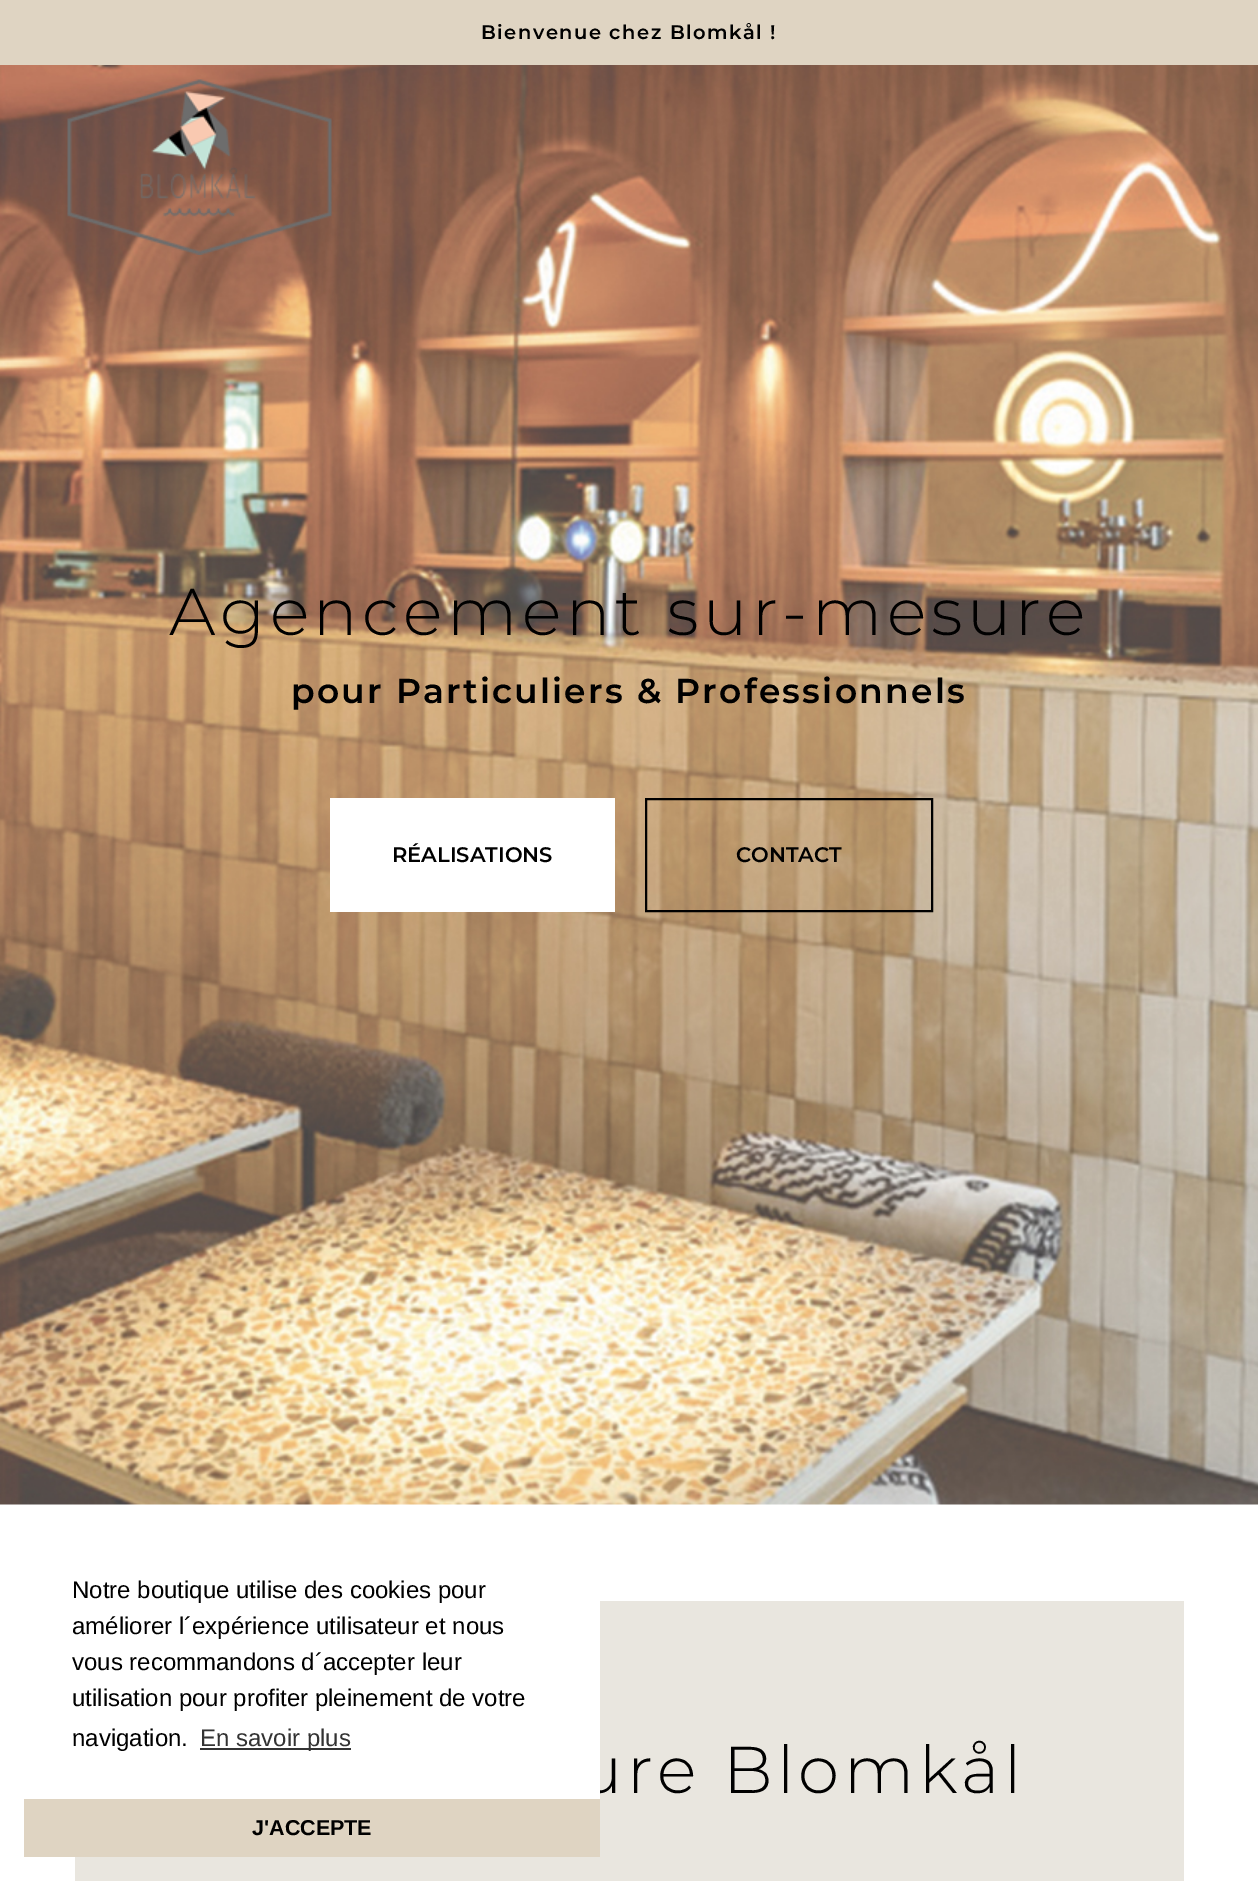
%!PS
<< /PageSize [1258 1881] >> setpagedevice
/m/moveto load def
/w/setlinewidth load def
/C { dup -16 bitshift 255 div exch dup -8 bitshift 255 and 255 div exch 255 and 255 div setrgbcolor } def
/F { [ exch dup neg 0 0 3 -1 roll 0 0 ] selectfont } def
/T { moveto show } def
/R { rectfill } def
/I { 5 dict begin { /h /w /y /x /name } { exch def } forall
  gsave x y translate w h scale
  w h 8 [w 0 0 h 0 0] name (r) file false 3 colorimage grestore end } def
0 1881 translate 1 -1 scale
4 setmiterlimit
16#FFFFFF C
0 0 1258 1881 R
16#DFD4C2 C
0 0 1258 65 R
/Montserrat-SemiBold 19.5 F
16#000000 C
481 39 m 1.5 0 (Bienvenue chez Blomkål !) ashow
(2.rgb) 0 65 1258 1440 I
(1.rgb) 67 79 265 176 I
/Montserrat-Light 66 F
169 635 m 4.5 0 (Agencement sur-mesure) ashow
/Montserrat-SemiBold 34.5 F
291 703 m 2.25 0 (pour Particuliers & Professionnels) ashow
16#FFFFFF C
330 798 285 114 R
/Montserrat-SemiBold 21 F
16#000000 C
(RÉALISATIONS) 392 862 T
2 w
646 799 286 112 rectstroke
(CONTACT) 736 862 T
16#E9E6DF C
75 1601 1109 280 R
/Montserrat-Light 66 F
16#000000 C
578 1793 m 4.5 0 (ure Blomkål) ashow
16#FFFFFF C
75 1601 525 198 R
/LiberationSans-Regular 24 F
16#000000 C
(Notre boutique utilise des cookies pour) 72 1598 T
(améliorer l´expérience utilisateur et nous) 72 1634 T
(vous recommandons d´accepter leur) 72 1670 T
(utilisation pour profiter pleinement de votre) 72 1706 T
(navigation.) 72 1746 T
16#333333 C
200 1748 151 2 R
(En savoir plus) 200 1746 T
16#DFD4C2 C
24 1799 576 58 R
/LiberationSans-Bold 21.5 F
16#000000 C
(J'ACCEPTE) 252 1835 T
showpage
